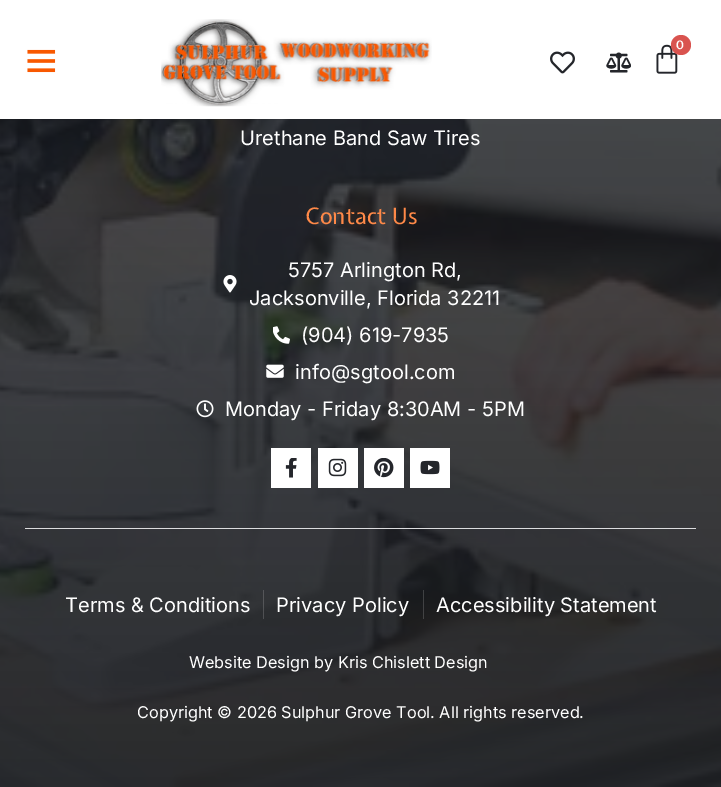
%!PS
<< /PageSize [721 787] /PageUsesTransparency true >> setpagedevice
/m/moveto load def
/f/fill load def
/C { dup -16 bitshift 255 div exch dup -8 bitshift 255 and 255 div exch 255 and 255 div setrgbcolor } def
/F { [ exch dup neg 0 0 3 -1 roll 0 0 ] selectfont } def
/T { moveto show } def
/R { rectfill } def
/A { dup .setfillconstantalpha .setstrokeconstantalpha } def
/O { newpath 0 360 arc closepath } def
/I { 5 dict begin { /h /w /y /x /name } { exch def } forall
  gsave x y translate w h scale
  w h 8 [w 0 0 h 0 0] name (r) file false 3 colorimage grestore end } def
0 .pushpdf14devicefilter
0 787 translate 1 -1 scale
4 setmiterlimit
16#FFFFFF C
0 0 721 787 R
(1.rgb) 161 19 271 88 I
(2.rgb) 656 44 22 30 I
16#D9534F C
681 45 10 O f
/ExpletusSans-SemiBold 12 F
16#FFFFFF C
676 49 m 1 0 (0) ashow
(3.rgb) 550 51 25 23 I
(4.rgb) 606 52 25 21 I
(5.rgb) 27 49 29 24 I
(6.rgb) 0 119 721 668 I
16#DCDCDE C
25 528 671 1 R
/Inter-Regular 20 F
16#FFFFFF C
(Urethane Band Saw Tires) 240 145 T
/ExpletusSans-Regular 22.5 F
16#FF8948 C
(Contact Us) 305 224 T
(7.rgb) 223 275 14 18 I
/Inter-Regular 20 F
16#FFFFFF C
(5757 Arlington Rd,) 288 277 T
(Jacksonville, Florida 32211) 249 305 T
(8.rgb) 273 326 17 18 I
(\(904\) 619-7935) 301 342 T
(9.rgb) 266 364 18 14 I
(info@sgtool.com) 295 379 T
(10.rgb) 196 400 18 18 I
(Monday - Friday 8:30AM - 5PM) 225 416 T
271 448 40 40 R
(11.rgb) 285 458 12 20 I
318 448 40 40 R
(12.rgb) 328 458 19 19 I
364 448 40 40 R
(13.rgb) 374 458 20 20 I
410 448 40 40 R
(14.rgb) 420 460 20 15 I
(Terms & Conditions) 65 612 T
0.17 A
263 590 1 29 R
1 A
(Privacy Policy) 276 612 T
0.17 A
423 590 1 29 R
1 A
(Accessibility Statement) 436 612 T
/Inter-Regular 16.25 F
(Website Design by Kris Chislett Design) 189 668 T
(Copyright © 2026 Sulphur Grove Tool. All rights reserved.) 137 718 T
.poppdf14devicefilter showpage
